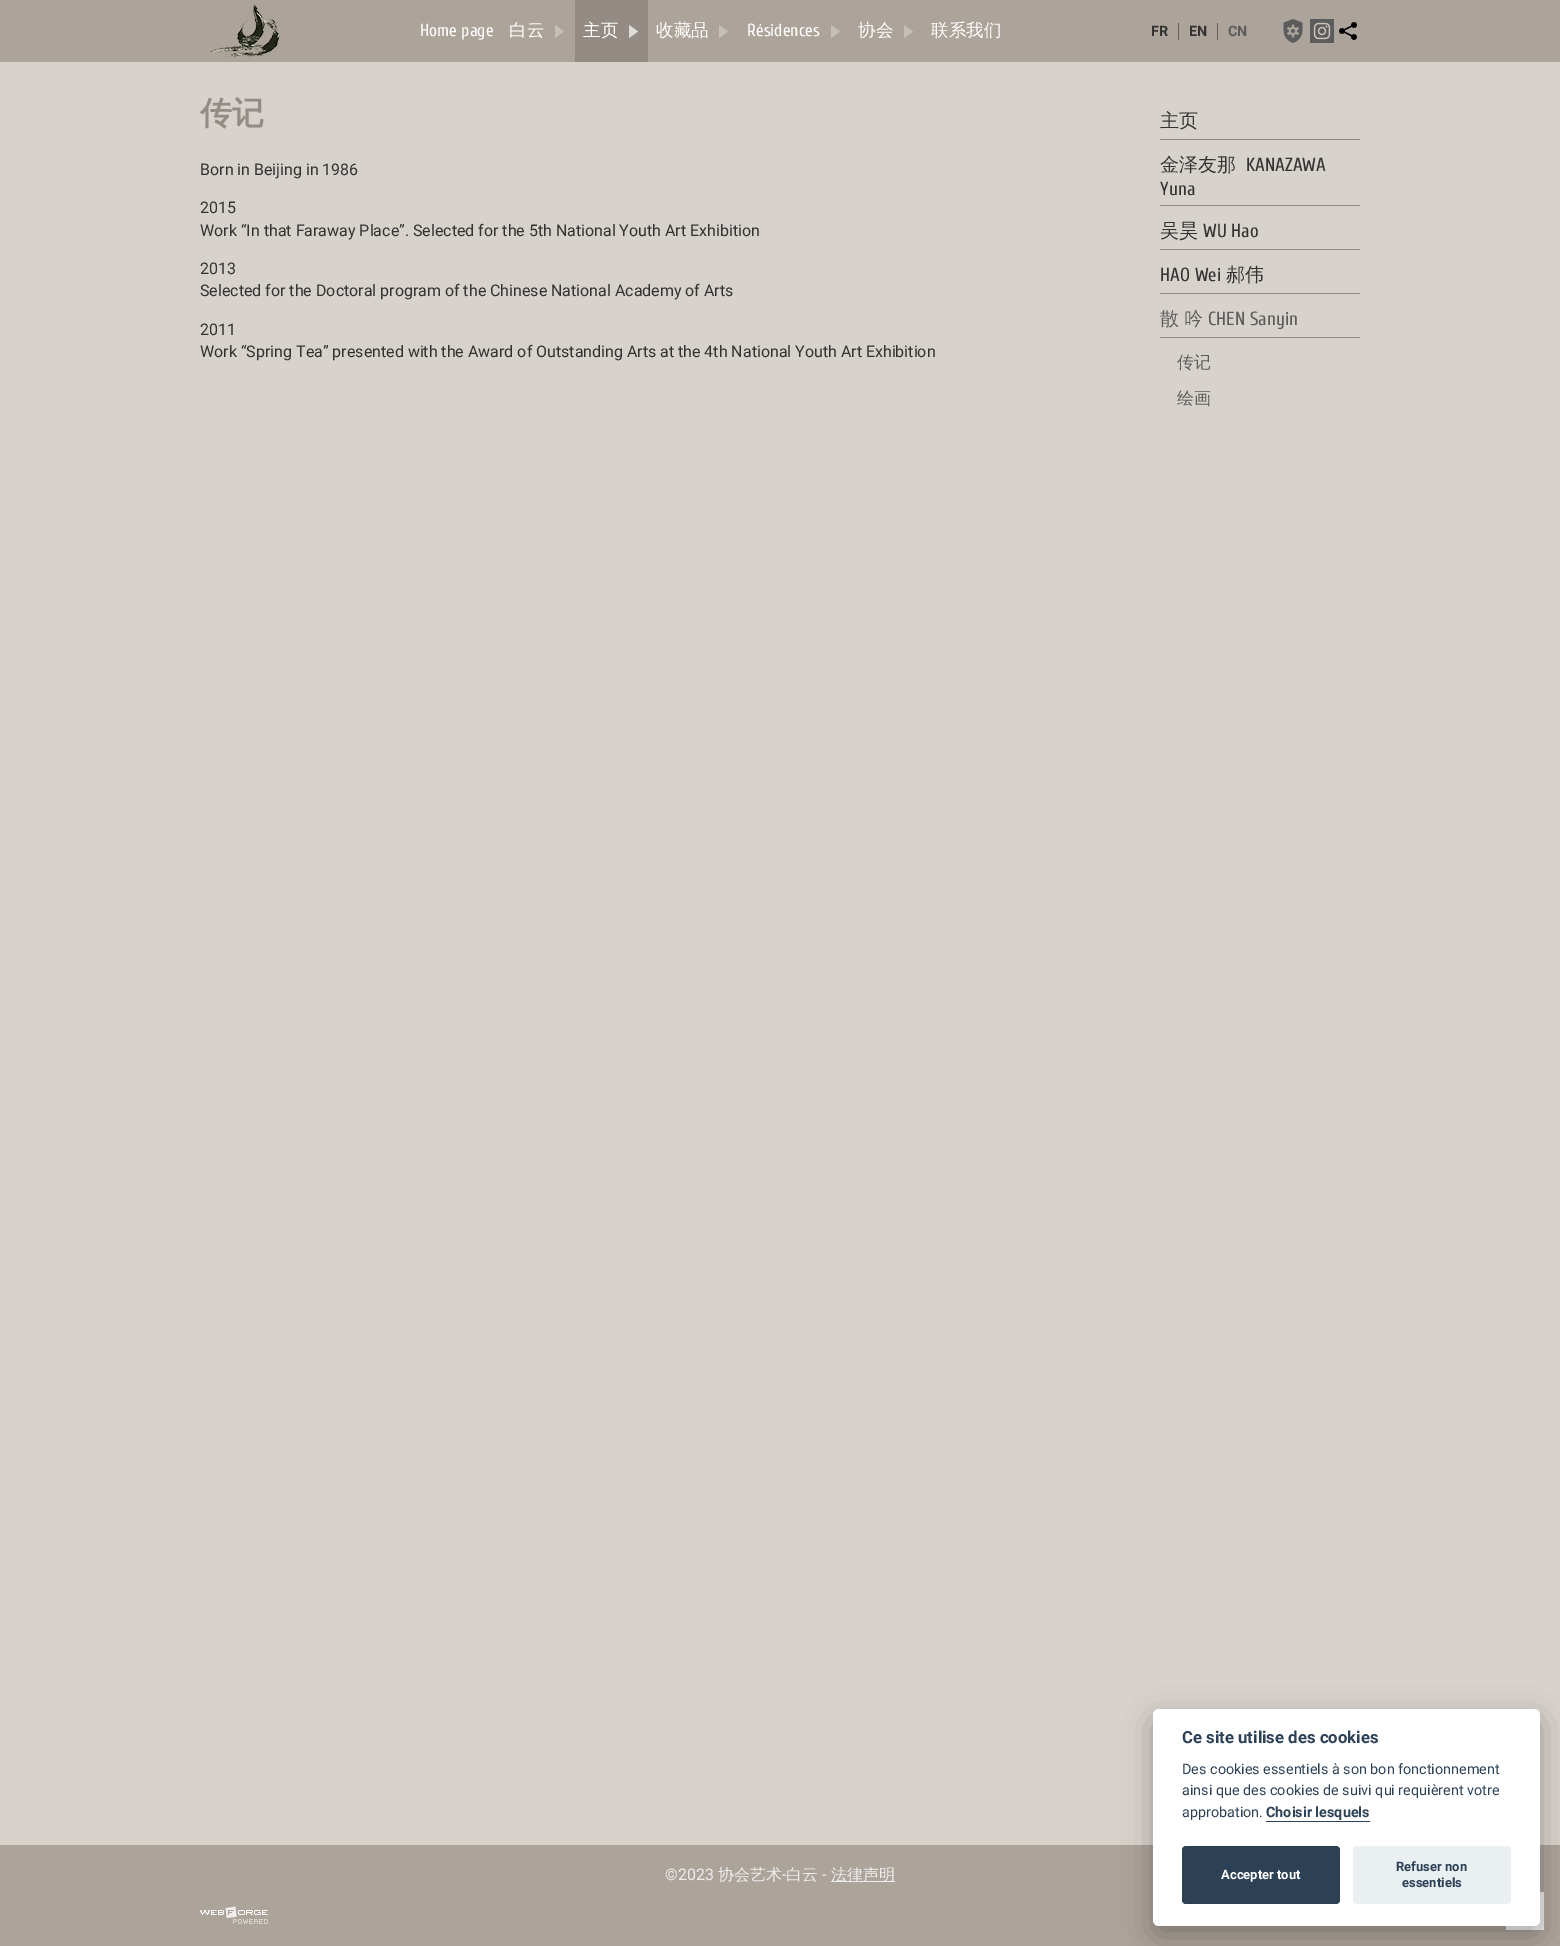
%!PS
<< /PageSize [1560 1946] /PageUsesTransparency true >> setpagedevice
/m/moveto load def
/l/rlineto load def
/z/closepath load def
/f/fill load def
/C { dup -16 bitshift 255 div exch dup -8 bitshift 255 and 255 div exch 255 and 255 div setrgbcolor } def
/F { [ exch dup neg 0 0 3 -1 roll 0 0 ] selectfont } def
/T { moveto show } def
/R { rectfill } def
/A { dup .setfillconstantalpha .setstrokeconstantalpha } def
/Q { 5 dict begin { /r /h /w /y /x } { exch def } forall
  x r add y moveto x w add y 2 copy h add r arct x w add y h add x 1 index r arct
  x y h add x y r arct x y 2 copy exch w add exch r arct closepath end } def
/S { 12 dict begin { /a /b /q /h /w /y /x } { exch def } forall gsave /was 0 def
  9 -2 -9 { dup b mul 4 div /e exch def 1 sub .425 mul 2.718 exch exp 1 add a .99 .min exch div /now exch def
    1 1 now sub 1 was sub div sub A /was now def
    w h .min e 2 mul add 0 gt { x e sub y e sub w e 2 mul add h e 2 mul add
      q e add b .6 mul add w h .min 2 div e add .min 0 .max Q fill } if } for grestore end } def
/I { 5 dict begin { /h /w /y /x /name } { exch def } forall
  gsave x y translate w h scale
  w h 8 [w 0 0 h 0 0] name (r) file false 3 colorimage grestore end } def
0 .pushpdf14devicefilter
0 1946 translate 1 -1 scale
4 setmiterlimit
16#D7D2CB C
0 0 1560 1946 R
16#ACA39A C
0 0 1560 62 R
(1.rgb) 205 4 75 54 I
/Cuprum-Regular 17.5 F
16#FFFFFF C
(Home page) 420 36 T
/WenQuanYiZenHei-Medium 17.5 F
(白云) 509 36 T
16#C5BFB8 C
564 31.5 m -9 -6.5 l 0 13 l z f
16#948C84 C
575 0 73 62 R
16#FFFFFF C
(主页) 583 36 T
16#DFDDDA C
638 31.5 m -9 -6.5 l 0 13 l z f
16#FFFFFF C
(收藏品) 656 36 T
16#C5BFB8 C
728 31.5 m -9 -6.5 l 0 13 l z f
/Cuprum-Regular 17.5 F
16#FFFFFF C
(Résidences) 747 36 T
16#C5BFB8 C
840 31.5 m -9 -6.5 l 0 13 l z f
/WenQuanYiZenHei-Medium 17.5 F
16#FFFFFF C
(协会) 858 36 T
16#C5BFB8 C
913 31.5 m -9 -6.5 l 0 13 l z f
16#FFFFFF C
(联系我们) 931 36 T
/Roboto-Bold 14.4 F
16#333333 C
(FR) 1151 36 T
16#67625C C
1178 23 1 17 R
16#333333 C
(EN) 1189 36 T
16#67625C C
1217 23 1 17 R
16#5C5C5C C
(CN) 1228 36 T
(2.rgb) 1283 19 20 24 I
1310 19 24 24 R
(3.rgb) 1313 22 18 18 I
(4.rgb) 1339 22 18 18 I
/WenQuanYiZenHei-Bold 32 F
16#948C84 C
(传记) 200 124 T
/Roboto-Regular 16 F
16#333333 C
(Born in Beijing in 1986) 200 175 T
(2015) 200 213 T
(Work “In that Faraway Place”. Selected for the 5th National Youth Art Exhibition) 200 236 T
(2013) 200 274 T
(Selected for the Doctoral program of the Chinese National Academy of Arts) 200 296 T
(2011) 200 335 T
(Work “Spring Tea” presented with the Award of Outstanding Arts at the 4th National Youth Art Exhibition) 200 357 T
16#948C84 C
1160 139 200 1 R
/WenQuanYiZenHei-Medium 19 F
16#333333 C
(主页) 1160 127 T
16#948C84 C
1160 205 200 1 R
16#333333 C
(金泽友那) 1160 171 T
/Cuprum-Regular 19 F
(KANAZAWA) 1246 171 T
(Yuna) 1160 195 T
16#948C84 C
1160 249 200 1 R
/WenQuanYiZenHei-Medium 19 F
16#333333 C
(吴昊) 1160 237 T
/Cuprum-Regular 19 F
(WU Hao) 1203 237 T
16#948C84 C
1160 293 200 1 R
16#333333 C
(HAO Wei) 1160 281 T
/WenQuanYiZenHei-Medium 19 F
(郝伟) 1226 281 T
16#948C84 C
1160 337 200 1 R
16#5C5C5C C
(散) 1160 325 T
(吟) 1184 325 T
/Cuprum-Regular 19 F
(CHEN Sanyin) 1208 325 T
/WenQuanYiZenHei-Medium 17 F
(传记) 1177 368 T
(绘画) 1177 404 T
16#ACA39A C
0 1845 1560 101 R
(5.rgb) 1506 1892 38 38 I
/Roboto-Regular 16 F
16#EEEEEE C
(©2023) 665 1880 T
/WenQuanYiZenHei-Medium 16 F
(协会艺术) 718 1880 T
/Roboto-Regular 16 F
(-) 782 1880 T
/WenQuanYiZenHei-Medium 16 F
(白云) 786 1880 T
/Roboto-Regular 16 F
(-) 822 1880 T
831 1881 64 1 R
/WenQuanYiZenHei-Medium 16 F
(法律声明) 831 1880 T
(6.rgb) 200 1906 68 18 I
16#020203 C
1153 1719 387 217 6 15 .28 S
16#FFFFFF C
1153 1709 387 217 6 Q f
/Roboto-Bold 16.75 F
16#2D4156 C
(Ce site utilise des cookies) 1182 1743 T
/Roboto-Regular 14.4 F
(Des cookies essentiels à son bon fonctionnement) 1182 1774 T
(ainsi que des cookies de suivi qui requièrent votre) 1182 1795 T
(approbation.) 1182 1817 T
/Roboto-Bold 14.4 F
(Choisir lesquels) 1266 1817 T
1266 1821 104 1 R
1182 1846 158 58 4 Q f
/Roboto-Bold 13 F
16#FFFFFF C
(Accepter tout) 1221 1879 T
16#EAEFF2 C
1353 1846 158 58 4 Q f
16#2D4156 C
(Refuser non) 1396 1871 T
(essentiels) 1402 1887 T
.poppdf14devicefilter showpage
